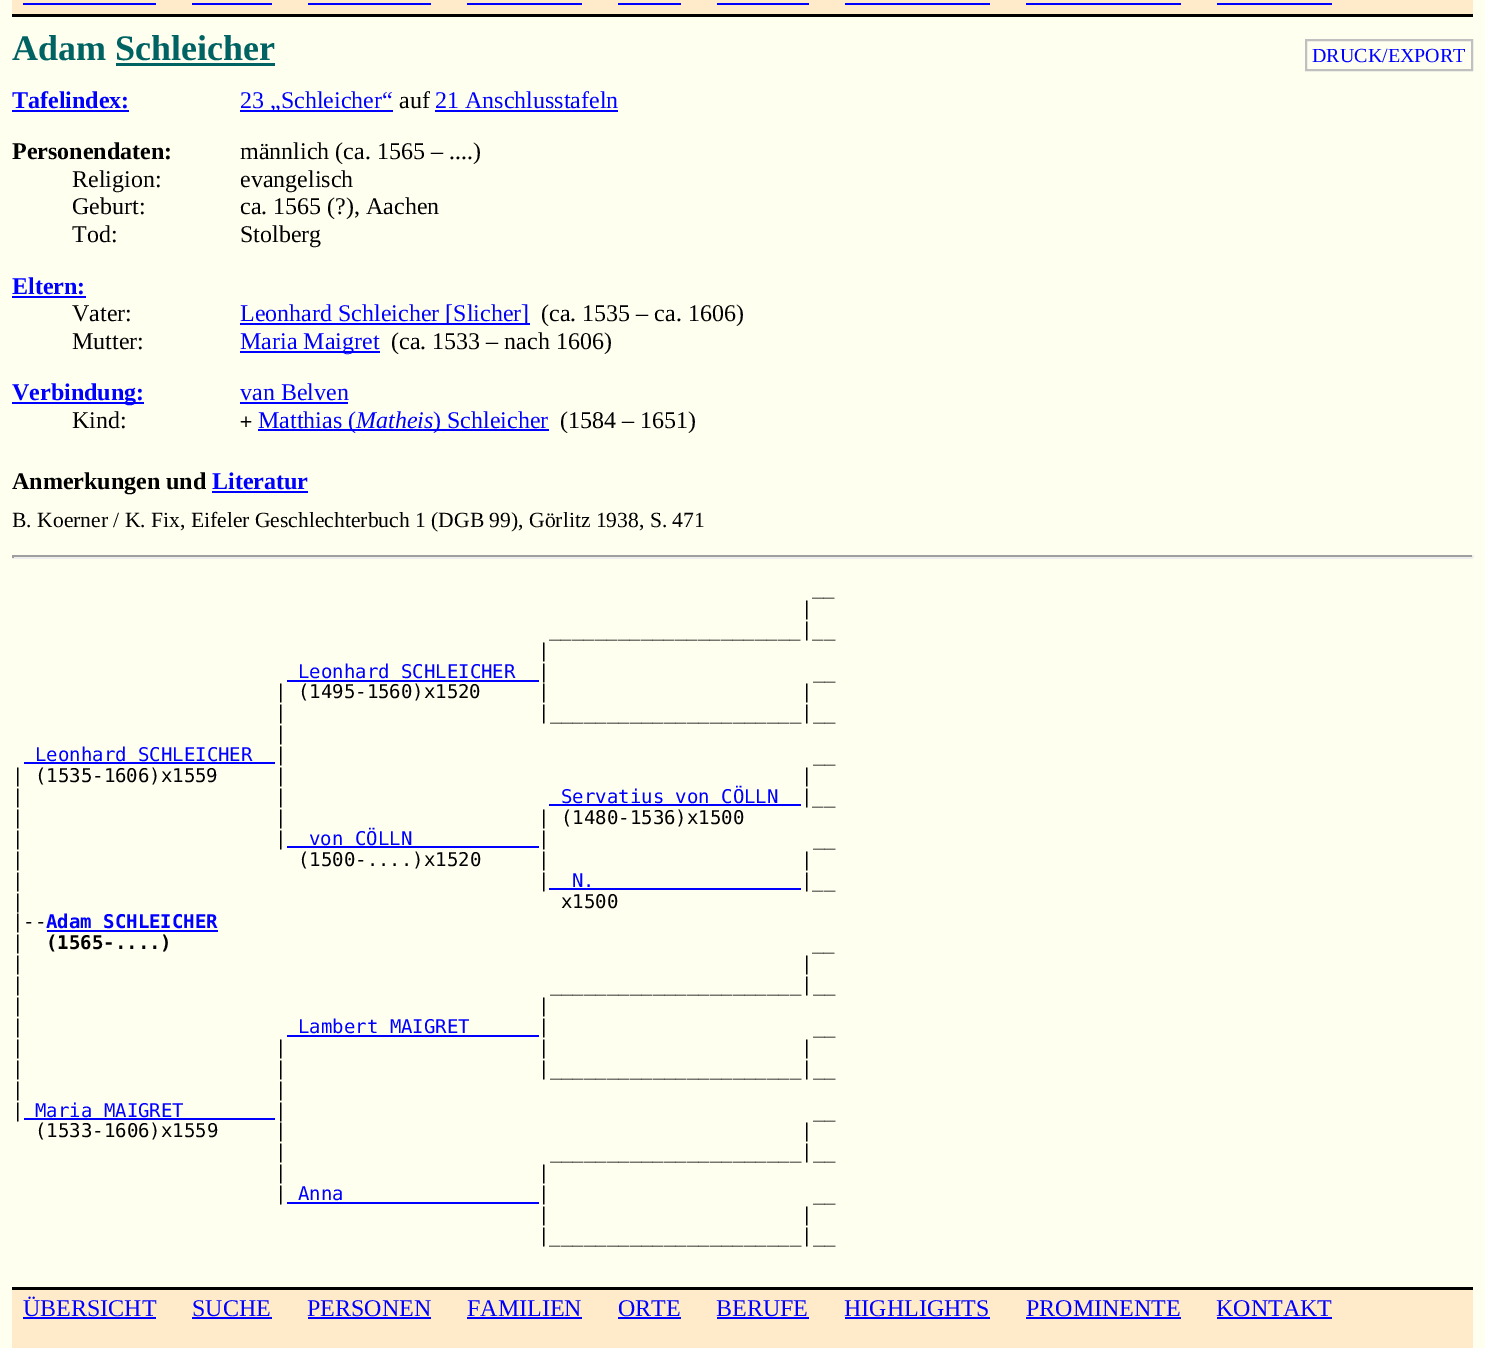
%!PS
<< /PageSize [1485 1348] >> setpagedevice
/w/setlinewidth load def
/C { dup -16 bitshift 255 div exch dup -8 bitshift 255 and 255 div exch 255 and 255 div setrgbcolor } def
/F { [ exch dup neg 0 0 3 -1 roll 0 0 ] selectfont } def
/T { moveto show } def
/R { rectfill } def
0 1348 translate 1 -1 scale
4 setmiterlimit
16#FFFFF0 C
0 0 1485 1348 R
16#FFEACA C
12 0 1461 14 R
16#000000 C
12 14 1461 3 R
16#0000FF C
23 3 133 2 R
192 3 80 2 R
308 3 123 2 R
467 3 115 2 R
618 3 63 2 R
717 3 92 2 R
845 3 145 2 R
1026 3 155 2 R
1217 3 115 2 R
/LiberationSerif-Bold 36 F
16#006363 C
(Adam Schleicher) 12 60 T
116 63 159 3 R
16#C0C0C0 C
2 w
1306 40 166 30 rectstroke
/LiberationSerif-Regular 20 F
16#0000FF C
(DRUCK/EXPORT) 1312 62 T
/LiberationSerif-Bold 24 F
(Tafelindex:) 12 108 T
12 110 117 2 R
240 110 153 2 R
/LiberationSerif-Regular 24 F
(23 „Schleicher“) 240 108 T
16#000000 C
(auf) 399 108 T
16#0000FF C
(21 Anschlusstafeln) 435 108 T
435 110 183 2 R
/LiberationSerif-Bold 24 F
16#000000 C
(Personendaten:) 12 159 T
/LiberationSerif-Regular 24 F
(männlich \(ca. 1565 – ....\)) 240 159 T
(Religion:) 72 187 T
(evangelisch) 240 187 T
(Geburt:) 72 214 T
(ca. 1565 \(?\), Aachen) 240 214 T
(Tod:) 72 242 T
(Stolberg) 240 242 T
/LiberationSerif-Bold 24 F
16#0000FF C
(Eltern:) 12 294 T
12 296 74 2 R
/LiberationSerif-Regular 24 F
16#000000 C
(Vater:) 72 321 T
16#0000FF C
240 323 290 2 R
(Leonhard Schleicher [Slicher]) 240 321 T
16#000000 C
(\(ca. 1535 – ca. 1606\)) 541 321 T
(Mutter:) 72 349 T
16#0000FF C
240 351 140 2 R
(Maria Maigret) 240 349 T
16#000000 C
(\(ca. 1533 – nach 1606\)) 391 349 T
16#0000FF C
12 402 132 2 R
/LiberationSerif-Bold 24 F
(Verbindung:) 12 400 T
/LiberationSerif-Regular 24 F
(van Belven) 240 400 T
240 402 108 2 R
16#000000 C
(Kind:) 72 428 T
/DejaVuSansMono-Regular 20 F
(+) 240 428 T
16#0000FF C
258 429 291 2 R
/LiberationSerif-Regular 24 F
(Matthias \() 258 428 T
/LiberationSerif-Italic 24 F
(Matheis) 356 428 T
/LiberationSerif-Regular 24 F
(\) Schleicher) 433 428 T
16#000000 C
(\(1584 – 1651\)) 560 428 T
/LiberationSerif-Bold 24 F
(Anmerkungen und) 12 489 T
16#0000FF C
(Literatur) 212 489 T
212 491 96 2 R
/LiberationSerif-Regular 21.6 F
16#000000 C
(B. Koerner / K. Fix, Eifeler Geschlechterbuch 1 \(DGB 99\), Görlitz 1938, S. 471) 12 527 T
16#9F9F9F C
12 555 1461 2 R
16#EEEEEE C
1472 555 2 3 R
12 557 1461 2 R
16#9F9F9F C
12 555 2 3 R
/DejaVuSansMono-Regular 19 F
16#000000 C
(__) 812 594 T
(|) 801 615 T
(______________________|__) 549 636 T
(|) 538 657 T
16#0000FF C
(Leonhard SCHLEICHER) 298 678 T
287 680 252 2 R
16#000000 C
(|                       __) 538 678 T
(| \(1495-1560\)x1520     |                      |) 275 698 T
(|                      |______________________|__) 275 719 T
(|) 275 740 T
16#0000FF C
(Leonhard SCHLEICHER) 35 761 T
24 762 251 2 R
16#000000 C
(|                                              __) 275 761 T
(| \(1535-1606\)x1559     |                                             |) 12 782 T
(|                      |) 12 803 T
16#0000FF C
(Servatius von CÖLLN) 561 803 T
549 804 252 2 R
16#000000 C
(|__) 801 803 T
(|                      |                      | \(1480-1536\)x1500) 12 824 T
(|                      |) 12 845 T
16#0000FF C
(von CÖLLN) 309 845 T
287 846 252 2 R
16#000000 C
(|                       __) 538 845 T
(|                        \(1500-....\)x1520     |                      |) 12 866 T
(|                                             |) 12 887 T
16#0000FF C
(N.) 572 887 T
549 888 252 2 R
16#000000 C
(|__) 801 887 T
(|                                               x1500) 12 908 T
(|--) 12 928 T
/DejaVuSansMono-Bold 19 F
16#0000FF C
(Adam SCHLEICHER) 46 928 T
47 930 171 2 R
/DejaVuSansMono-Regular 19 F
16#000000 C
(|) 12 949 T
/DejaVuSansMono-Bold 19 F
(\(1565-....\)) 46 949 T
/DejaVuSansMono-Regular 19 F
(__) 812 949 T
(|                                                                    |) 12 970 T
(|                                              ______________________|__) 12 991 T
(|                                             |) 12 1012 T
(|) 12 1033 T
16#0000FF C
(Lambert MAIGRET) 298 1033 T
287 1035 252 2 R
16#000000 C
(|                       __) 538 1033 T
(|                      |                      |                      |) 12 1054 T
(|                      |                      |______________________|__) 12 1075 T
(|                      |) 12 1096 T
(|) 12 1117 T
16#0000FF C
(Maria MAIGRET) 35 1117 T
24 1118 251 2 R
16#000000 C
(|                                              __) 275 1117 T
(\(1533-1606\)x1559     |                                             |) 35 1137 T
(|                       ______________________|__) 275 1158 T
(|                      |) 275 1179 T
(|) 275 1200 T
16#0000FF C
(Anna) 298 1200 T
287 1202 252 2 R
16#000000 C
(|                       __) 538 1200 T
(|                      |) 538 1221 T
(|______________________|__) 538 1242 T
16#FFEACA C
12 1290 1461 58 R
16#000000 C
12 1287 1461 3 R
/LiberationSerif-Regular 24 F
16#0000FF C
(ÜBERSICHT) 23 1316 T
23 1317 133 2 R
(SUCHE) 192 1316 T
192 1317 80 2 R
(PERSONEN) 307 1316 T
308 1317 123 2 R
(FAMILIEN) 467 1316 T
467 1317 115 2 R
(ORTE) 618 1316 T
618 1317 63 2 R
(BERUFE) 716 1316 T
717 1317 92 2 R
(HIGHLIGHTS) 844 1316 T
845 1317 145 2 R
(PROMINENTE) 1026 1316 T
1026 1317 155 2 R
(KONTAKT) 1216 1316 T
1217 1317 115 2 R
showpage
